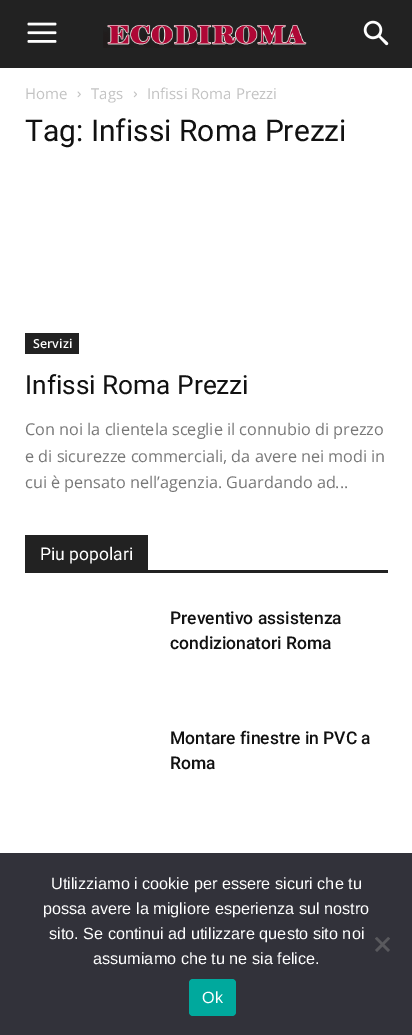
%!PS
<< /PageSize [412 1035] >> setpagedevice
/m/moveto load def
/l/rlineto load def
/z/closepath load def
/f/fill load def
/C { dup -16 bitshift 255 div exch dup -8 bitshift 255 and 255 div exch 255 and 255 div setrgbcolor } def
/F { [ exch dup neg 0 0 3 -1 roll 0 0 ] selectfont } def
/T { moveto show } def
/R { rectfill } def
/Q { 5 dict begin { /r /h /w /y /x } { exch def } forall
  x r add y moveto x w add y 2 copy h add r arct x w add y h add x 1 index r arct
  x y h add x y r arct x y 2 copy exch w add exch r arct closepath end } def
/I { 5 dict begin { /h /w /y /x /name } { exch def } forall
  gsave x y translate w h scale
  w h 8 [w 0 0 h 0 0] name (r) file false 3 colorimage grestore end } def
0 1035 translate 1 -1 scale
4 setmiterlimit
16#FFFFFF C
0 0 412 1035 R
16#222222 C
0 0 412 68 R
(1.rgb) 27 22 30 21 I
(2.rgb) 103 25 204 23 I
(3.rgb) 363 20 26 26 I
/OpenSans-Regular 15 F
16#C3C3C3 C
(Home) 25 99 T
(4.rgb) 77 91 4 7 I
(Tags) 91 99 T
(5.rgb) 133 91 4 7 I
(Infissi Roma Prezzi) 147 99 T
/Roboto-Regular 30 F
16#111111 C
(Tag: Infissi Roma Prezzi) 25 141 T
16#222222 C
25 333 54 21 R
/OpenSans-SemiBold 12.5 F
16#FFFFFF C
(Servizi) 33 348 T
/Roboto-Regular 26.25 F
16#111111 C
(Infissi Roma Prezzi) 25 394 T
/OpenSans-Regular 16.25 F
16#777777 C
(Con noi la clientela sceglie il connubio di prezzo) 25 435 T
(e di sicurezze commerciali, da avere nei modi in) 25 462 T
(cui è pensato nell’agenzia. Guardando ad...) 25 488 T
16#222222 C
25 570 363 3 R
25 535 123 35 R
/Roboto-Regular 17.5 F
16#FFFFFF C
(Piu popolari) 40 560 T
/Roboto-Medium 17.5 F
16#111111 C
(Preventivo assistenza) 170 624 T
(condizionatori Roma) 170 649 T
(Montare finestre in PVC a) 170 744 T
(Roma) 170 769 T
16#32323A C
0 853 412 182 R
/LiberationSans-Regular 16.25 F
16#FFFFFF C
(Utilizziamo i cookie per essere sicuri che tu) 51 889 T
(possa avere la migliore esperienza sul nostro) 43 914 T
(sito. Se continui ad utilizzare questo sito noi) 49 939 T
(assumiamo che tu ne sia felice.) 93 964 T
16#59595D C
388 937 m 2 1.5 l -13 13.5 l -2 -2 l z f
375 938.5 m 2 -1.5 l 13 13 l -2 2 l z f
16#00A99D C
189 979 47 37 4 Q f
16#FFFFFF C
(Ok) 202 1003 T
showpage
